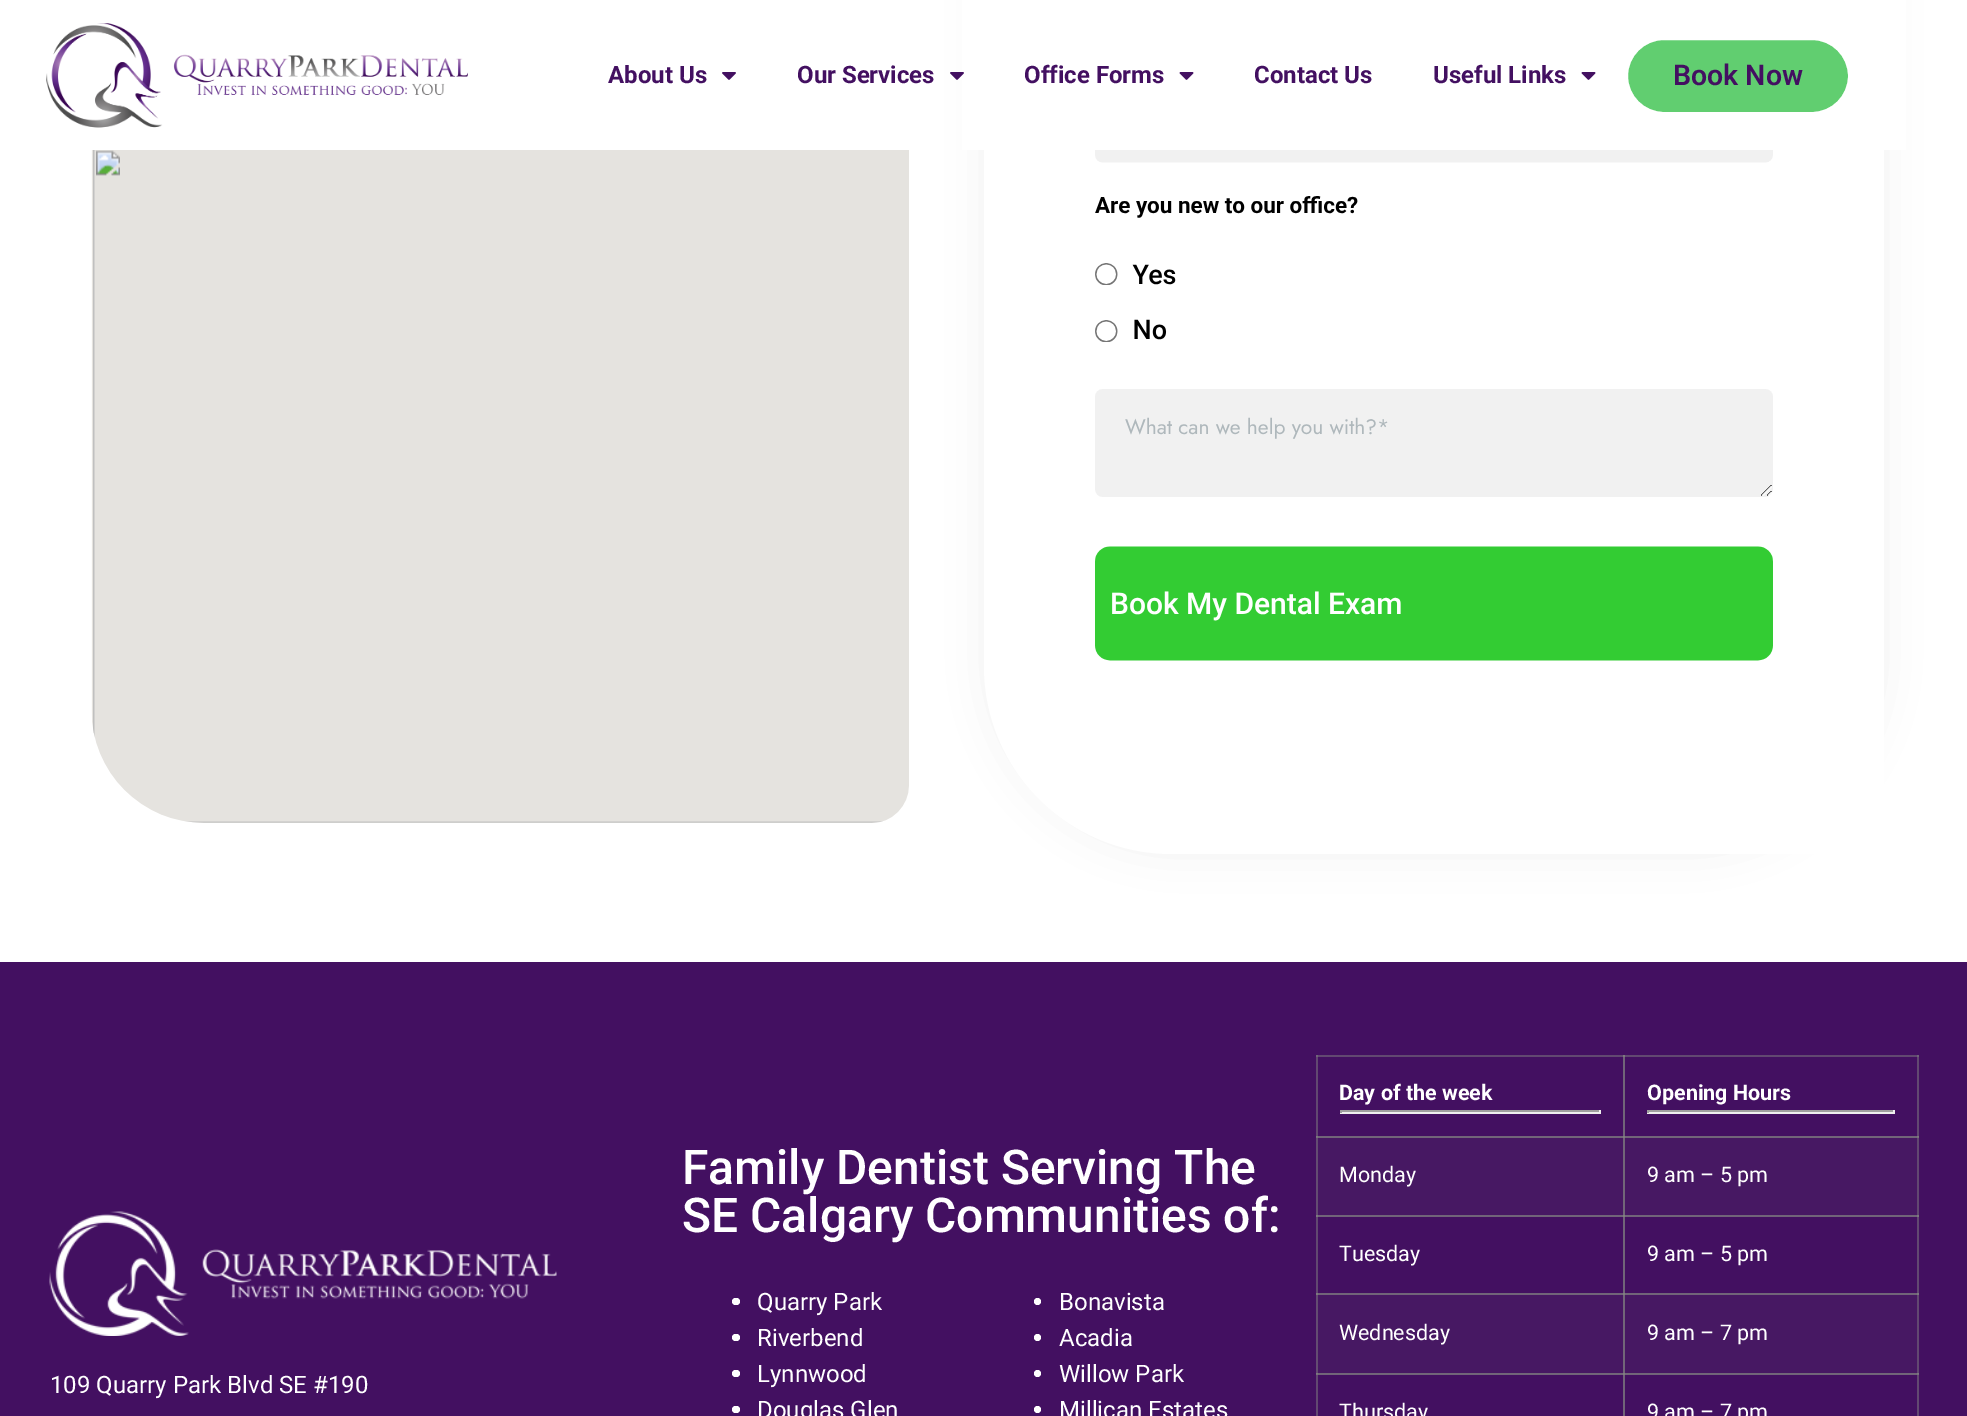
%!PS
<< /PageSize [1967 1416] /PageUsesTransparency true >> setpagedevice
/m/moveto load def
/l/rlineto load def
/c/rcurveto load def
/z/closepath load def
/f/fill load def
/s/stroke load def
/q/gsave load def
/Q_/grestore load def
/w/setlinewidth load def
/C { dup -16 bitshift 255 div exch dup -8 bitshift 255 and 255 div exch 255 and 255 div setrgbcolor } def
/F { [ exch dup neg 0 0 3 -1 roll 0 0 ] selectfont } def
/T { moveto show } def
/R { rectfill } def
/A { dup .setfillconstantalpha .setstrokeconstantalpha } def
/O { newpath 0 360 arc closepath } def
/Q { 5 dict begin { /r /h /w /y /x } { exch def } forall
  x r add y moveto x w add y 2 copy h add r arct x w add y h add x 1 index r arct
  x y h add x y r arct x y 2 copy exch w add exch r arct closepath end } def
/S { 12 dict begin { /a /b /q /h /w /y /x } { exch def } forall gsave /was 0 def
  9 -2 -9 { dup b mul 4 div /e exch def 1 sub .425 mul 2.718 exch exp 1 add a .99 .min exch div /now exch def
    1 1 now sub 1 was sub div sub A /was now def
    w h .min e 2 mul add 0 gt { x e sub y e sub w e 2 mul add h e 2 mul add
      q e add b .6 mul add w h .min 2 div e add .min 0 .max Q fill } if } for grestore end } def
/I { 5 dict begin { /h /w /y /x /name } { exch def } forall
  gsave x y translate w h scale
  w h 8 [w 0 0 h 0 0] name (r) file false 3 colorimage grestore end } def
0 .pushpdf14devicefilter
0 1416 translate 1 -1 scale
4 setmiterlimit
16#FFFFFF C
0 0 1967 1416 R
(1.rgb) 91 150 818 673 I
16#000000 C
984 -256 900 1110 188 22.5 .06 S
16#FFFFFF C
1059 -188 m 750 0 l 41.5 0 75 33.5 75 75 c 0 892 l 0 41.5 -33.5 75 -75 75 c -637 0 l -104 0 -188 -84 -188 -188 c 0 -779 l 0 -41.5 33.5 -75 75 -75 c z f
(2.rgb) 1095 150 678 511 I
962 0 944 150 R
(3.rgb) 46 23 422 105 I
/Roboto-Bold 24 F
16#431061 C
(About Us) 608 83 T
(4.rgb) 722 72 14 8 I
(Our Services) 797 83 T
(4.rgb) 950 72 14 8 I
(Office Forms) 1024 83 T
(5.rgb) 1179 72 15 8 I
(Contact Us) 1254 83 T
(Useful Links) 1433 83 T
(5.rgb) 1581 72 15 8 I
16#61CE70 C
1627 39 222 74 37 Q q f Q_
16#FFFFFF C
2 w
s
/Roboto-SemiBold 28.5 F
16#431061 C
(Book Now) 1673 85 T
0 962 1967 454 R
16#624871 C
1316 1055 2 82 R
1316 1055 309 2 R
16#716479 C
1316 1055 2 2 R
1623 1055 2 82 R
16#624871 C
1917 1055 2 361 R
16#716479 C
1316 1136 603 1 R
16#7D797F C
1316 1136 2 1 R
16#808080 C
1623 1136 2 1 R
16#79727D C
1917 1137 2 1 R
16#7D797F C
1917 1136 2 1 R
16#624871 C
1316 1215 2 80 R
16#716479 C
1316 1215 309 2 R
16#7D797F C
1316 1215 2 2 R
16#716479 C
1623 1215 2 80 R
1316 1293 603 2 R
16#7D797F C
1316 1293 2 2 R
16#624871 C
1316 1373 2 43 R
16#716479 C
1316 1374 309 1 R
16#79727D C
1316 1374 2 1 R
16#716479 C
1623 1373 2 43 R
1623 1374 296 1 R
16#807F80 C
1623 1374 2 1 R
16#79727D C
1917 1374 2 1 R
16#7D797F C
1917 1373 2 1 R
(6.rgb) 49 1211 508 125 I
/Roboto-Regular 24 F
16#FFFFFF C
(109 Quarry Park Blvd SE #190) 50 1393 T
/Roboto-Medium 48 F
(Family Dentist Serving The) 682 1184 T
(SE Calgary Communities of:) 682 1232 T
732 1298 8 7 3.5 Q f
/Roboto-Regular 24 F
(Quarry Park) 757 1310 T
732 1334 8 7 3.5 Q f
(Riverbend) 757 1346 T
732 1370 8 7 3.5 Q f
(Lynnwood) 757 1382 T
732 1406 8 7 3.5 Q f
(Douglas Glen) 757 1418 T
1037.5 1301.5 3.5 O f
(Bonavista) 1059 1310 T
1037.5 1337.5 3.5 O f
(Acadia) 1059 1346 T
1037.5 1373.5 3.5 O f
(Willow Park) 1059 1382 T
1037.5 1409.5 3.5 O f
(Millican Estates) 1059 1418 T
/Roboto-Bold 21.5 F
(Day of the week) 1339 1100 T
16#9F9F9F C
1340 1110 261 2 R
16#EEEEEE C
1599 1110 2 3 R
1340 1112 261 2 R
16#9F9F9F C
1340 1110 2 3 R
16#624871 C
1623 1055 296 2 R
16#7D797F C
1623 1055 2 2 R
16#716479 C
1917 1055 2 2 R
16#FFFFFF C
(Opening Hours) 1647 1100 T
16#9F9F9F C
1647 1110 248 2 R
16#EEEEEE C
1893 1110 2 3 R
1647 1112 248 2 R
16#9F9F9F C
1647 1110 2 3 R
16#471863 C
1318 1138 305 77 R
16#644C72 C
1316 1137 2 78 R
16#726679 C
1316 1137 601 1 R
16#79737D C
1316 1137 2 1 R
16#726679 C
1623 1137 2 78 R
16#807F80 C
1623 1137 2 1 R
/Roboto-Regular 21.5 F
16#FFFFFF C
(Monday) 1339 1182 T
16#471863 C
1625 1138 292 77 R
16#FFFFFF C
(9 am – 5 pm) 1647 1182 T
(Tuesday) 1339 1261 T
16#716479 C
1623 1215 296 2 R
16#808080 C
1623 1215 2 2 R
16#7D797F C
1917 1215 2 2 R
16#FFFFFF C
(9 am – 5 pm) 1647 1261 T
16#471863 C
1318 1295 305 78 R
16#644C72 C
1316 1295 2 79 R
16#726679 C
1623 1295 2 79 R
1316 1373 601 1 R
16#7D7A7F C
1316 1373 2 1 R
16#808080 C
1623 1373 2 1 R
16#FFFFFF C
(Wednesday) 1339 1340 T
16#471863 C
1625 1295 292 78 R
16#808080 C
1623 1293 2 2 R
16#7D797F C
1917 1293 2 2 R
16#FFFFFF C
(9 am – 7 pm) 1647 1340 T
(Thursday) 1339 1419 T
(9 am – 7 pm) 1647 1419 T
.poppdf14devicefilter showpage
